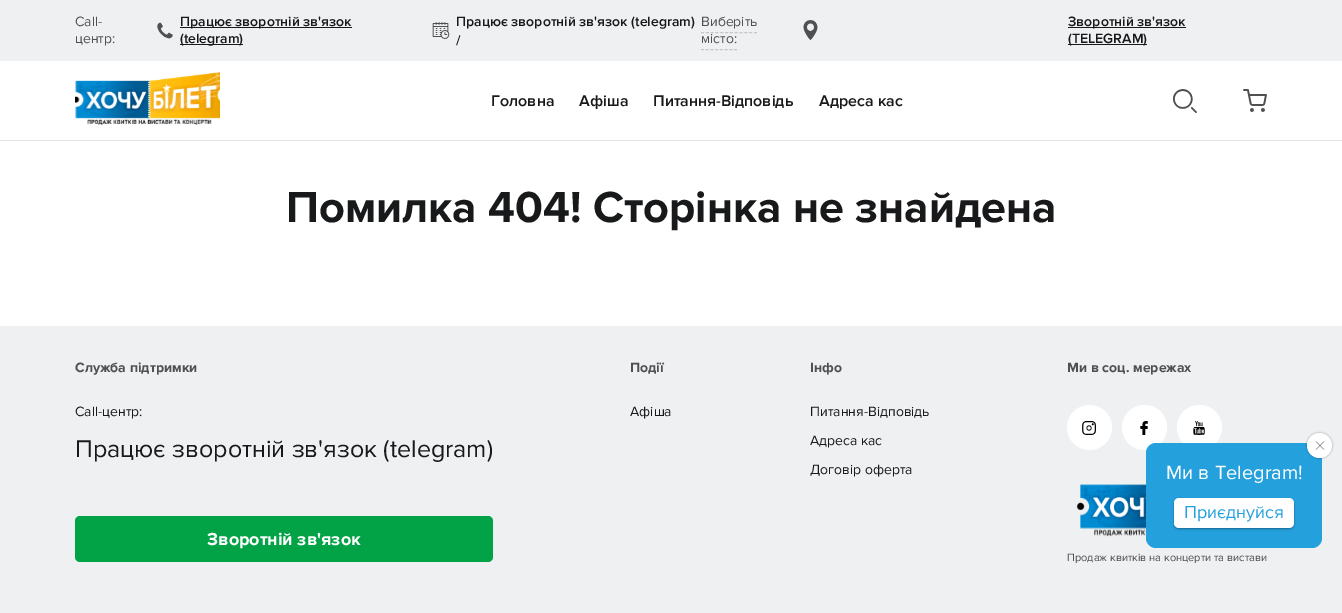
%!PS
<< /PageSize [1342 613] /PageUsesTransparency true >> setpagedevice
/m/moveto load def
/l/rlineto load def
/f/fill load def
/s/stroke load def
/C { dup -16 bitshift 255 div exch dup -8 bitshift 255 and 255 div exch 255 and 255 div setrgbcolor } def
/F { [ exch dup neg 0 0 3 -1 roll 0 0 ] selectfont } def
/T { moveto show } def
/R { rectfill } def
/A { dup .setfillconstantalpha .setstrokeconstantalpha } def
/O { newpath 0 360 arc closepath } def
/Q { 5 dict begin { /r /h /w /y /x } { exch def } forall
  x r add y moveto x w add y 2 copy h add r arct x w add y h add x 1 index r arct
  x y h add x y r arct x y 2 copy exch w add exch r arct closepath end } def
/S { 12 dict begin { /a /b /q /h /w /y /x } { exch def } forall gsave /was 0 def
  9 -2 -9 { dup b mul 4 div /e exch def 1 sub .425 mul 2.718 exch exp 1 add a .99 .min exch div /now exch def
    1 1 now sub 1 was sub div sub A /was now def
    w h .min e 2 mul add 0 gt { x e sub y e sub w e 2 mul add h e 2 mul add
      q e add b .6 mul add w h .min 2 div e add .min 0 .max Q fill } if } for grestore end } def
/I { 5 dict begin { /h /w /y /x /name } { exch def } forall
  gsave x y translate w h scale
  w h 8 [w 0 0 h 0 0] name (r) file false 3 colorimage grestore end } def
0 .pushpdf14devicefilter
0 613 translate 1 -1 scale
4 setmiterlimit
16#FFFFFF C
0 0 1342 613 R
16#E0E2E4 C
0 140 1342 1 R
16#EEF0F1 C
0 0 1342 61 R
/ProximaNova-Regular 14 F
16#505050 C
(Call-) 75 26 T
(центр:) 75 43 T
(1.rgb) 157 22 16 17 I
16#18191A C
180 27 172 1 R
/ProximaNova-SemiBold 14 F
(Працює зворотній зв'язок) 180 26 T
180 44 63 1 R
(\(telegram\)) 180 43 T
(2.rgb) 432 22 18 17 I
(Працює зворотній зв'язок \(telegram\)) 456 26 T
(/) 456 45 T
/ProximaNova-Regular 14 F
16#505050 C
(Виберіть) 701 26 T
(3.rgb) 803 20 15 20 I
(місто:) 701 43 T
16#C5C7CB C
[3 1.82] 0 setdash
701 32.5 m 56 0 l s
[3 1.71] 0 setdash
701 49.5 m 36 0 l s
16#18191A C
1068 27 118 1 R
/ProximaNova-SemiBold 14 F
(Зворотній зв'язок) 1068 26 T
1068 44 79 1 R
(\(TELEGRAM\)) 1068 43 T
(4.rgb) 75 72 145 56 I
/ProximaNova-SemiBold 16 F
(Головна) 491 106 T
(Афіша) 579 106 T
(Питання-Відповідь) 653 106 T
(Адреса кас) 819 106 T
(5.rgb) 1173 89 24 24 I
(6.rgb) 1243 89 24 23 I
/ProximaNova-Bold 45 F
(Помилка 404! Сторінка не знайдена) 286 222 T
16#EEF0F1 C
0 326 1342 287 R
/ProximaNova-Bold 14 F
16#505050 C
(Служба підтримки) 75 372 T
/ProximaNova-Regular 14 F
16#18191A C
(Call-центр:) 75 416 T
/ProximaNova-Regular 25 F
(Працює зворотній зв'язок \(telegram\)) 75 457 T
16#02A346 C
75 516 418 46 5 Q f
/ProximaNova-Bold 18 F
16#FFFFFF C
(Зворотній зв'язок) 207 545 T
/ProximaNova-Bold 14 F
16#505050 C
(Події) 630 372 T
/ProximaNova-Regular 14 F
16#18191A C
(Афіша) 630 416 T
/ProximaNova-Bold 14 F
16#505050 C
(Інфо) 810 372 T
/ProximaNova-Regular 14 F
16#18191A C
(Питання-Відповідь) 810 416 T
(Адреса кас) 810 445 T
(Договір оферта) 810 474 T
/ProximaNova-Bold 14 F
16#505050 C
(Ми в соц. мережах) 1067 372 T
16#FFFFFF C
1089.5 427.5 22.5 O f
(7.rgb) 1082 421 14 14 I
1144.5 427.5 22.5 O f
(8.rgb) 1140 421 8 14 I
1199.5 427.5 22.5 O f
(9.rgb) 1193 421 12 14 I
(10.rgb) 1076 484 70 53 I
/ProximaNova-Regular 11 F
16#505050 C
(Продаж квитків на концерти та вистави) 1067 561 T
16#24A0DD C
1146 443 176 105 10 Q f
16#000000 C
1307 433 25 25 12.5 1 .36 S
16#FFFFFF C
1319.5 445.5 12.5 O f
(11.rgb) 1315 441 10 9 I
/ProximaNova-Regular 20 F
(Ми в Telegram!) 1166 479 T
16#000000 C
1174 499 120 30 5 1 .36 S
16#FFFFFF C
1174 498 120 30 5 Q f
/ProximaNova-Regular 18 F
16#24A0DD C
(Приєднуйся) 1184 518 T
.poppdf14devicefilter showpage
